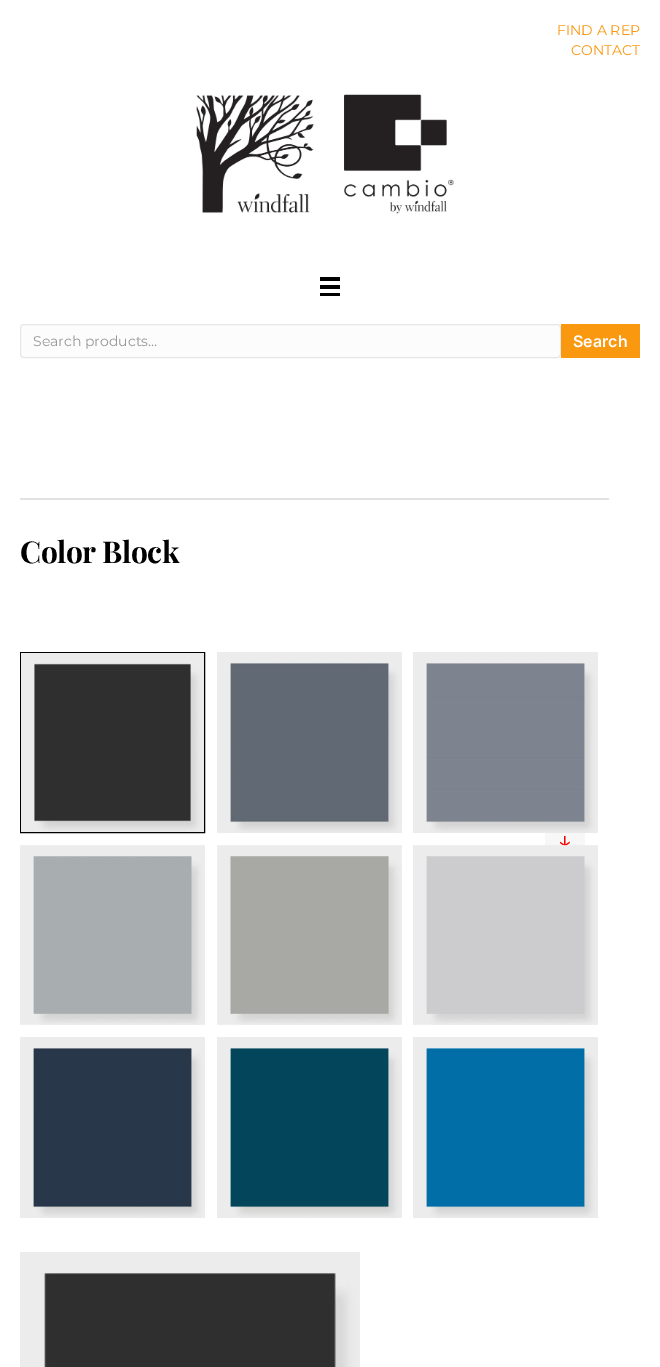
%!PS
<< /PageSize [660 1367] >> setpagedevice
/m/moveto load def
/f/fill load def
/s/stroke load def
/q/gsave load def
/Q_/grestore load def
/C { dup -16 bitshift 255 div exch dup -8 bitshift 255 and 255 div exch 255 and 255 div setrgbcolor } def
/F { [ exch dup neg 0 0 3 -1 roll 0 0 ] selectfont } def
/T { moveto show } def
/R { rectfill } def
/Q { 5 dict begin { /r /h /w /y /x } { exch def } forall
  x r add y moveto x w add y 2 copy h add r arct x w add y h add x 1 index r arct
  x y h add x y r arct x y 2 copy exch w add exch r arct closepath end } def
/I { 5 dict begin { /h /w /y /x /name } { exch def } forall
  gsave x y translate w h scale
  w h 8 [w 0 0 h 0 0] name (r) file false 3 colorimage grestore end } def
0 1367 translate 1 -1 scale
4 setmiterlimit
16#FFFFFF C
0 0 660 1367 R
/Montserrat-Thin 14 F
16#FA9810 C
(FIND A REP) 557 35 T
(CONTACT) 571 55 T
(1.rgb) 196 94 258 120 I
16#000000 C
320 277 20 4 R
320 285 20 4 R
320 293 20 3 R
16#FCFCFC C
20.5 324.5 540 33 3.5 Q q f Q_
16#E6E6E6 C
s
16#979797 C
(Search products…) 33 346 T
16#FA9810 C
561 324 79 34 R
/Inter-SemiBold 16 F
16#FFFFFF C
(Search) 573 347 T
16#E2E2E2 C
20 498 589 2 R
/PlayfairDisplay-Bold 30 F
16#000000 C
20 563 m -.5 0 (Color Block) ashow
20.5 652.5 184 180 rectstroke
(2.rgb) 21 653 183 179 I
(3.rgb) 217 652 185 181 I
(4.rgb) 413 652 185 181 I
(5.rgb) 20 845 185 180 I
(6.rgb) 217 845 185 180 I
16#F7F7F7 C
545 833 40 13 R
/Montserrat-Thin 25 F
16#FF0000 C
(↓) 557 848 T
(7.rgb) 413 845 185 180 I
(8.rgb) 20 1037 185 181 I
(9.rgb) 217 1037 185 181 I
(10.rgb) 413 1037 185 181 I
(11.rgb) 20 1252 340 115 I
showpage
